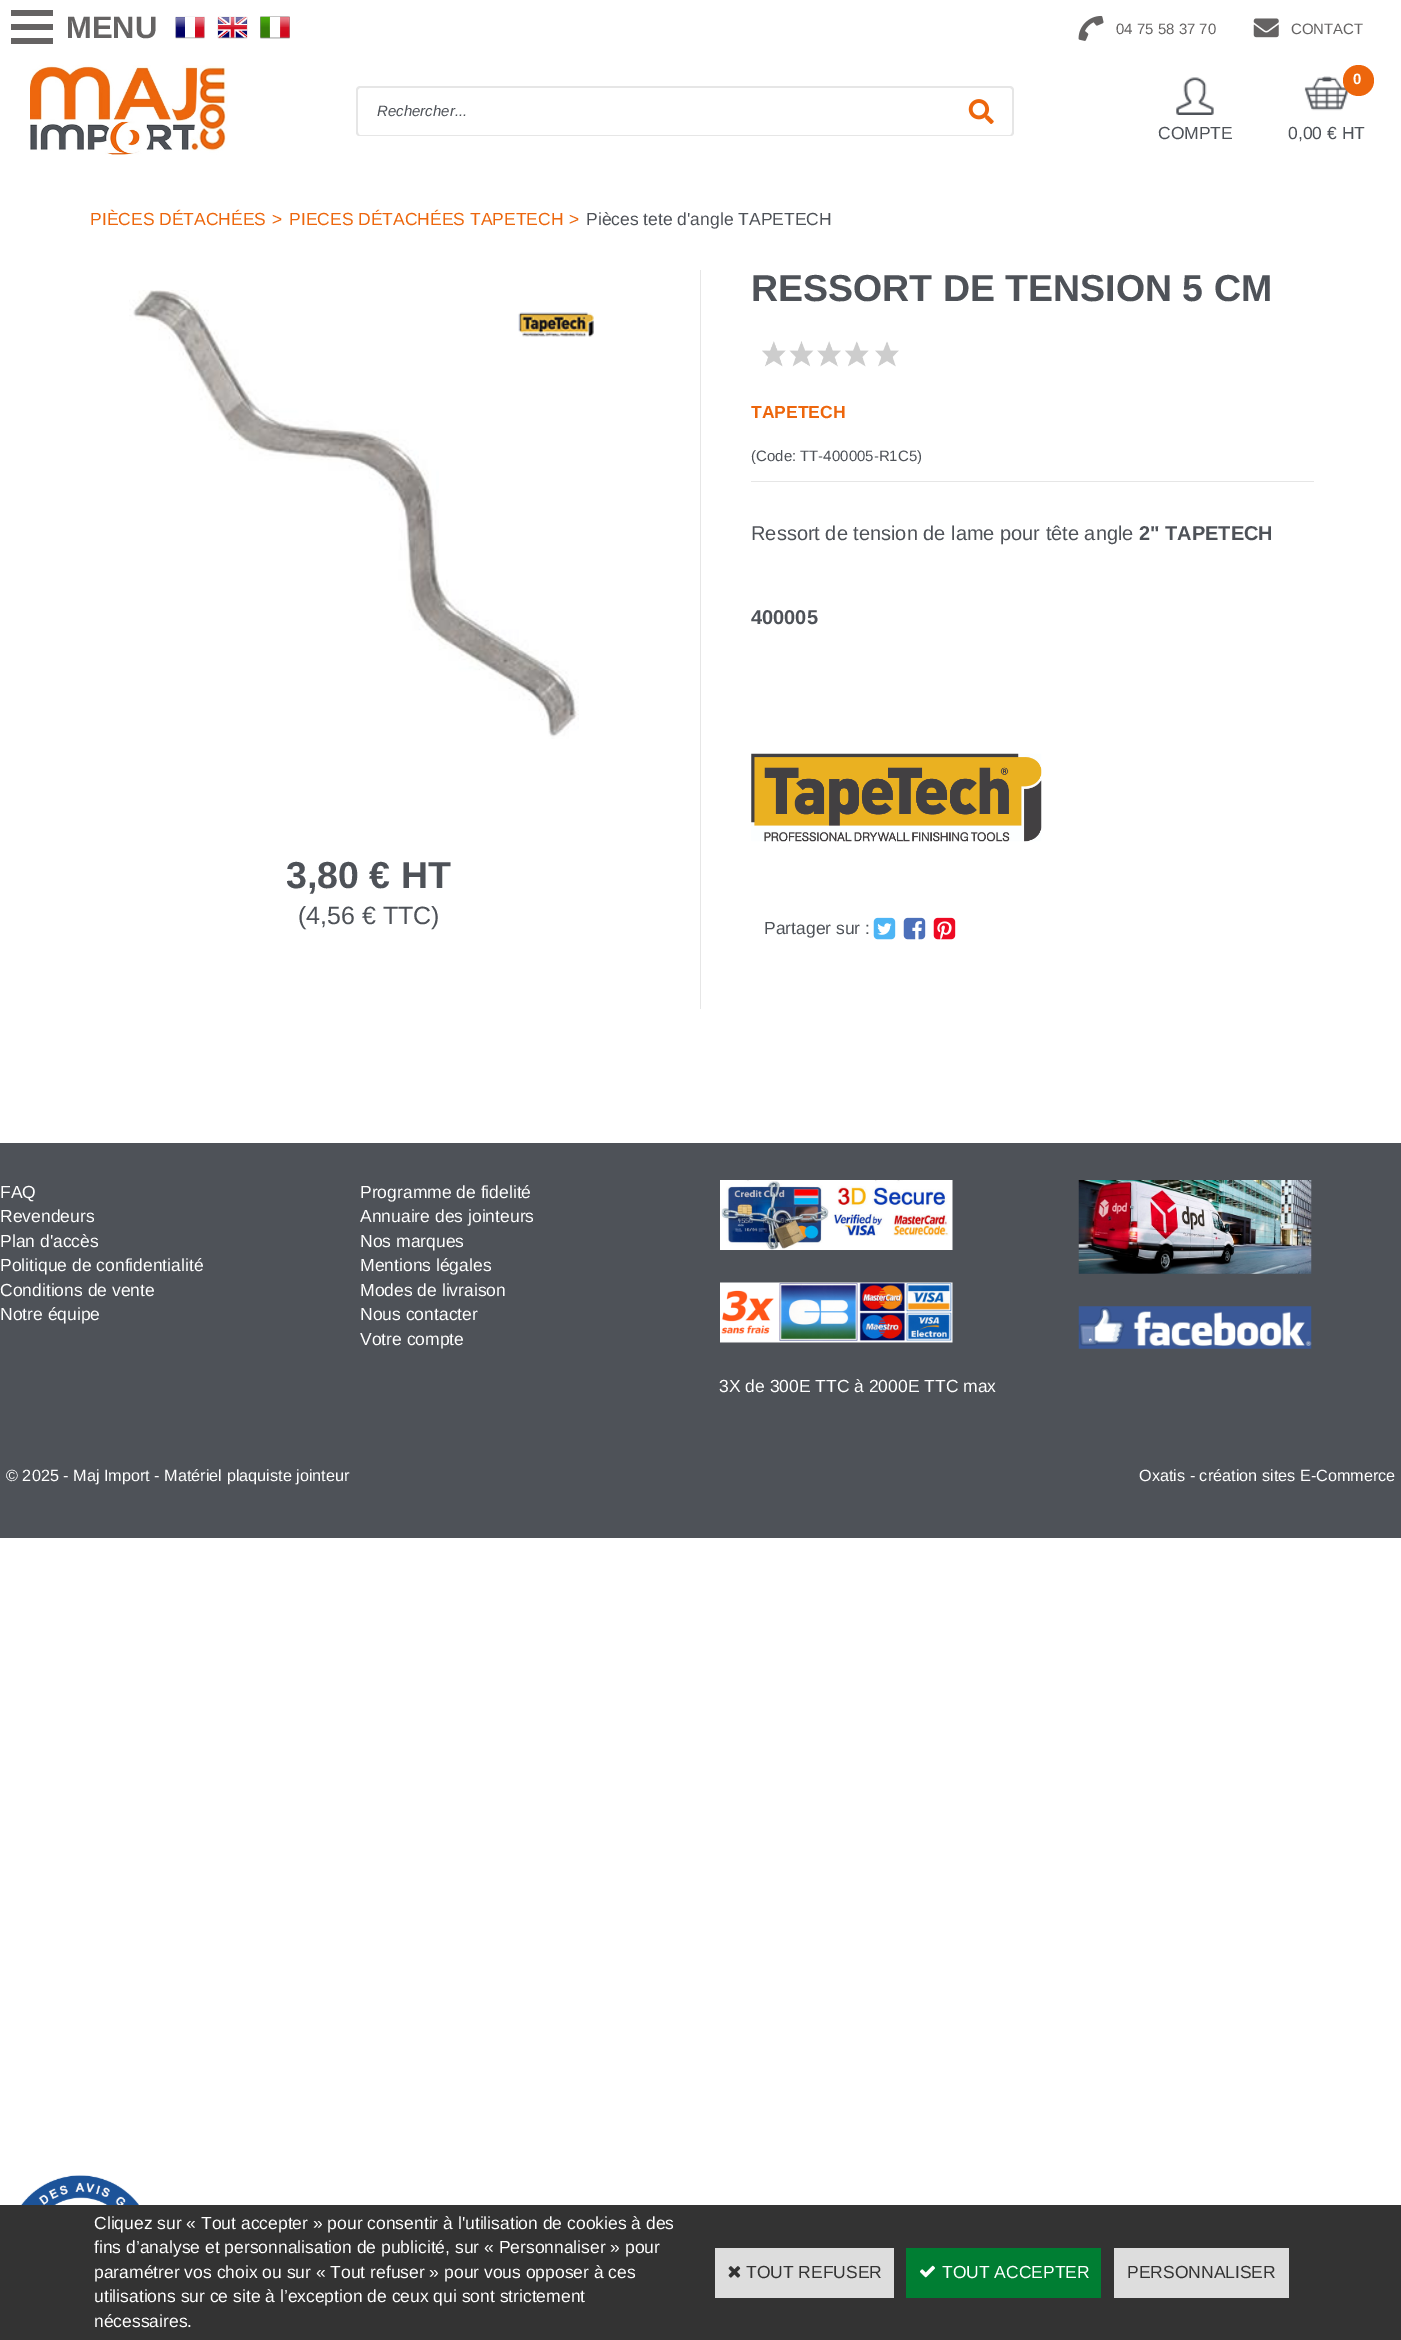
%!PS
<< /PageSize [1401 2340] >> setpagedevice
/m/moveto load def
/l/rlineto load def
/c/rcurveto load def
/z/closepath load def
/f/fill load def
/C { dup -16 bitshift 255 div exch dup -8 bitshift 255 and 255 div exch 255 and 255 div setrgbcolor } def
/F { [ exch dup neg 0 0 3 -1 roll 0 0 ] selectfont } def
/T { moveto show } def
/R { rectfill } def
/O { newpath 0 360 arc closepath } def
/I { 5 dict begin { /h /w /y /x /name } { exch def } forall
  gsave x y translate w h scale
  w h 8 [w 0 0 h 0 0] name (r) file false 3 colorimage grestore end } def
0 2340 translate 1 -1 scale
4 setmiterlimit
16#FFFFFF C
0 0 1401 2340 R
16#656363 C
11 10 42 6 R
11 24 42 6 R
/LiberationSans-Bold 31 F
(MENU) 66 38 T
11 38 42 6 R
(1.rgb) 175 16 30 23 I
(2.rgb) 217 16 31 23 I
(3.rgb) 260 16 30 23 I
(4.rgb) 1078 15 26 26 I
/LiberationSans-Regular 15 F
(04 75 58 37 70) 1116 34 T
(5.rgb) 1253 18 26 20 I
(CONTACT) 1291 34 T
(6.rgb) 30 65 198 90 I
16#E6E6E6 C
360 86 m 590 0 l 0 50 l -590 0 l -2 0 -4 -1 -4 -4 c 0 -42 l 0 -2 2 -4 4 -4 c z 360 88 m 590 0 l 0 47 l -590 0 l -1 0 -2 -1 -2 -3 c 0 -42 l 0 -1 1 -2 2 -2 c z eofill
/LiberationSans-Italic 15 F
16#4E5258 C
(Rechercher...) 377 116 T
16#E6E6E6 C
950 86 m 60 0 l 2 0 4 2 4 4 c 0 42 l 0 3 -2 4 -4 4 c -60 0 l z 950 88 m 60 0 l 1 0 2 1 2 2 c 0 42 l 0 2 -1 3 -2 3 c -60 0 l z eofill
(7.rgb) 968 99 26 25 I
(8.rgb) 1176 77 38 38 I
/LiberationSans-Regular 17.5 F
16#4E5258 C
(COMPTE) 1158 139 T
(9.rgb) 1304 76 45 35 I
16#ED660C C
1358.5 80.5 15.5 O f
/LiberationSans-Bold 15 F
16#FFFFFF C
(0) 1353 84 T
/LiberationSans-Regular 17.5 F
16#4E5258 C
(0,00 € HT) 1288 139 T
16#ED660C C
(PIÈCES DÉTACHÉES) 90 225 T
(>) 272 225 T
(PIECES DÉTACHÉES TAPETECH) 289 225 T
(>) 569 225 T
16#4E5258 C
(Pièces tete d'angle TAPETECH) 586 225 T
(10.rgb) 129 290 450 449 I
(11.rgb) 518 312 76 25 I
/LiberationSans-Bold 37.5 F
(3,80 € HT) 286 888 T
/LiberationSans-Regular 25 F
(\(4,56 € TTC\)) 298 924 T
16#E6E6E6 C
700 270 1 739 R
/LiberationSans-Bold 37.5 F
16#4E5258 C
(RESSORT DE TENSION 5 CM) 751 301 T
(12.rgb) 762 341 137 26 I
/LiberationSans-Bold 17.5 F
16#ED660C C
(TAPETECH) 751 418 T
/LiberationSans-Regular 15 F
16#4E5258 C
(\(Code: TT-400005-R1C5\)) 751 461 T
16#E6E6E6 C
751 481 563 1 R
/LiberationSans-Regular 20 F
16#4E5258 C
(Ressort de tension de lame pour tête angle) 751 540 T
/LiberationSans-Bold 20 F
(2" TAPETECH) 1139 540 T
(400005) 751 624 T
(13.rgb) 751 753 291 89 I
/LiberationSans-Regular 17.5 F
(Partager sur :) 764 934 T
(14.rgb) 873 917 23 23 I
(15.rgb) 903 917 23 23 I
(16.rgb) 933 917 23 23 I
0 1143 1401 395 R
16#FFFFFF C
(FAQ) 0 1198 T
(Revendeurs) 0 1222 T
(Plan d'accès) 0 1247 T
(Politique de confidentialité) 0 1271 T
(Conditions de vente) 0 1296 T
(Notre équipe) 0 1320 T
(Programme de fidelité) 360 1198 T
(Annuaire des jointeurs) 360 1222 T
(Nos marques) 360 1247 T
(Mentions légales) 360 1271 T
(Modes de livraison) 360 1296 T
(Nous contacter) 360 1320 T
(Votre compte) 360 1345 T
(17.rgb) 1078 1180 234 94 I
(18.rgb) 1078 1306 234 43 I
(19.rgb) 720 1180 233 70 I
(20.rgb) 720 1282 233 61 I
(3X de 300E TTC à 2000E TTC max) 719 1392 T
/LiberationSans-Regular 16.25 F
(© 2025 - Maj Import - Matériel plaquiste jointeur) 6 1481 T
(Oxatis - création sites E-Commerce) 1139 1481 T
16#333333 C
0 2205 1401 135 R
/LiberationSans-Regular 17.5 F
16#FFFFFF C
(Cliquez sur « Tout accepter » pour consentir à l'utilisation de cookies à des) 94 2229 T
(fins d’analyse et personnalisation de publicité, sur « Personnaliser » pour) 94 2253 T
(paramétrer vos choix ou sur « Tout refuser » pour vous opposer à ces) 94 2278 T
(utilisations sur ce site à l’exception de ceux qui sont strictement) 94 2302 T
(nécessaires.) 94 2327 T
16#DDDDDD C
715 2248 179 50 R
(21.rgb) 728 2266 13 12 I
16#333333 C
(TOUT REFUSER) 746 2278 T
16#007E33 C
906 2248 195 50 R
(22.rgb) 920 2265 15 13 I
16#FFFFFF C
(TOUT ACCEPTER) 942 2278 T
16#DDDDDD C
1114 2248 175 50 R
16#333333 C
(PERSONNALISER) 1127 2278 T
(23.rgb) 21 2175 118 30 I
showpage
